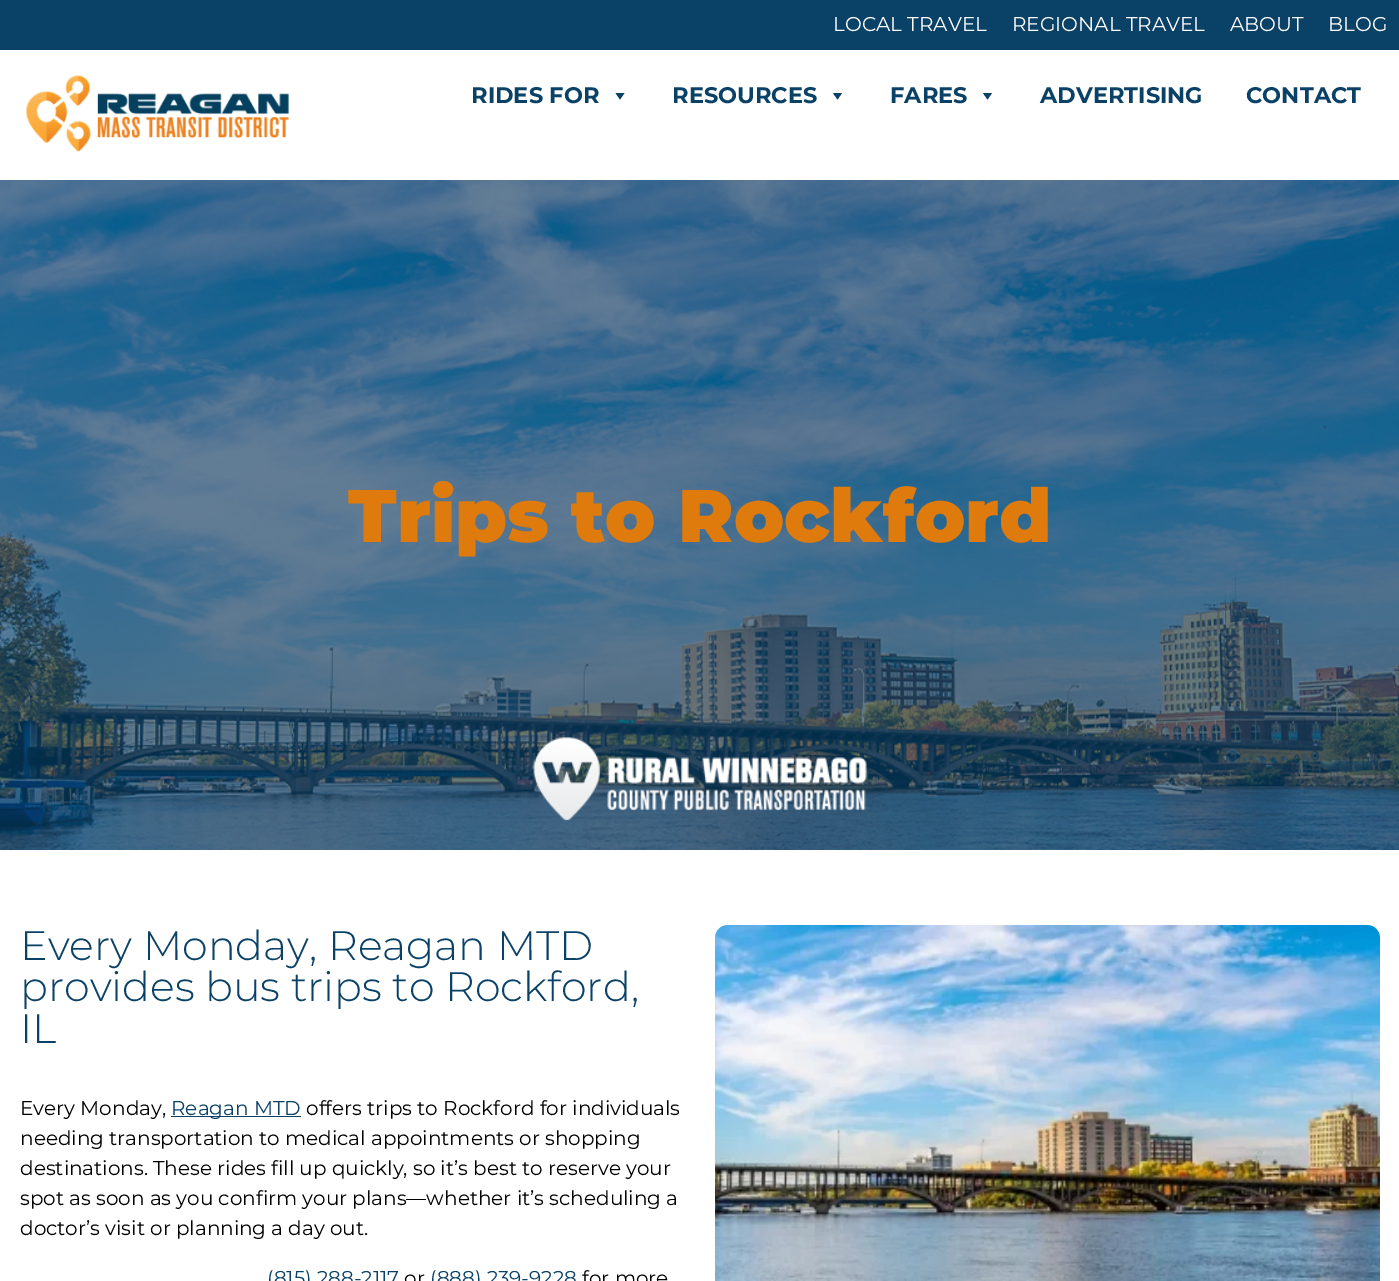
%!PS
<< /PageSize [1399 1281] >> setpagedevice
/m/moveto load def
/l/rlineto load def
/z/closepath load def
/f/fill load def
/C { dup -16 bitshift 255 div exch dup -8 bitshift 255 and 255 div exch 255 and 255 div setrgbcolor } def
/F { [ exch dup neg 0 0 3 -1 roll 0 0 ] selectfont } def
/T { moveto show } def
/R { rectfill } def
/I { 5 dict begin { /h /w /y /x /name } { exch def } forall
  gsave x y translate w h scale
  w h 8 [w 0 0 h 0 0] name (r) file false 3 colorimage grestore end } def
0 1281 translate 1 -1 scale
4 setmiterlimit
16#FFFFFF C
0 0 1399 1281 R
16#0A4167 C
0 0 1399 50 R
/Montserrat-Regular 20 F
16#FFFFFF C
(LOCAL TRAVEL) 833 31 T
(REGIONAL TRAVEL) 1012 31 T
(ABOUT) 1230 31 T
(BLOG) 1328 31 T
(1.rgb) 25 75 265 77 I
/Montserrat-Bold 22.5 F
16#0A4167 C
(RIDES FOR) 471 103 T
624.5 93 m -4.5 6.5 l -4.5 -6.5 l z f
(RESOURCES) 672 103 T
842 93 m -4.5 6.5 l -4.5 -6.5 l z f
(FARES) 890 103 T
992 93 m -4.5 6.5 l -4.5 -6.5 l z f
(ADVERTISING) 1040 103 T
(CONTACT) 1246 103 T
(2.rgb) 0 180 1399 670 I
/Montserrat-Black 74.4 F
16#DE7B0C C
(Trips to Rockford) 348 542 T
/Montserrat-Light 41.25 F
16#0A4167 C
(Every Monday, Reagan MTD) 20 960 T
(provides bus trips to Rockford,) 20 1001 T
(IL) 20 1043 T
/Montserrat-Regular 20 F
16#000000 C
(Every Monday,) 20 1115 T
16#0A4167 C
171 1116 130 1 R
(Reagan MTD) 171 1115 T
16#000000 C
(offers trips to Rockford for individuals) 306 1115 T
(needing transportation to medical appointments or shopping) 20 1145 T
(destinations. These rides fill up quickly, so it’s best to reserve your) 20 1175 T
(spot as soon as you confirm your plans—whether it’s scheduling a) 20 1205 T
(doctor’s visit or planning a day out.) 20 1235 T
16#0A4167 C
(\(815\) 288-2117) 267 1285 T
16#000000 C
(or) 404 1285 T
16#0A4167 C
(\(888\) 239-9228) 430 1285 T
16#000000 C
(for more) 582 1285 T
(3.rgb) 715 925 665 356 I
showpage
